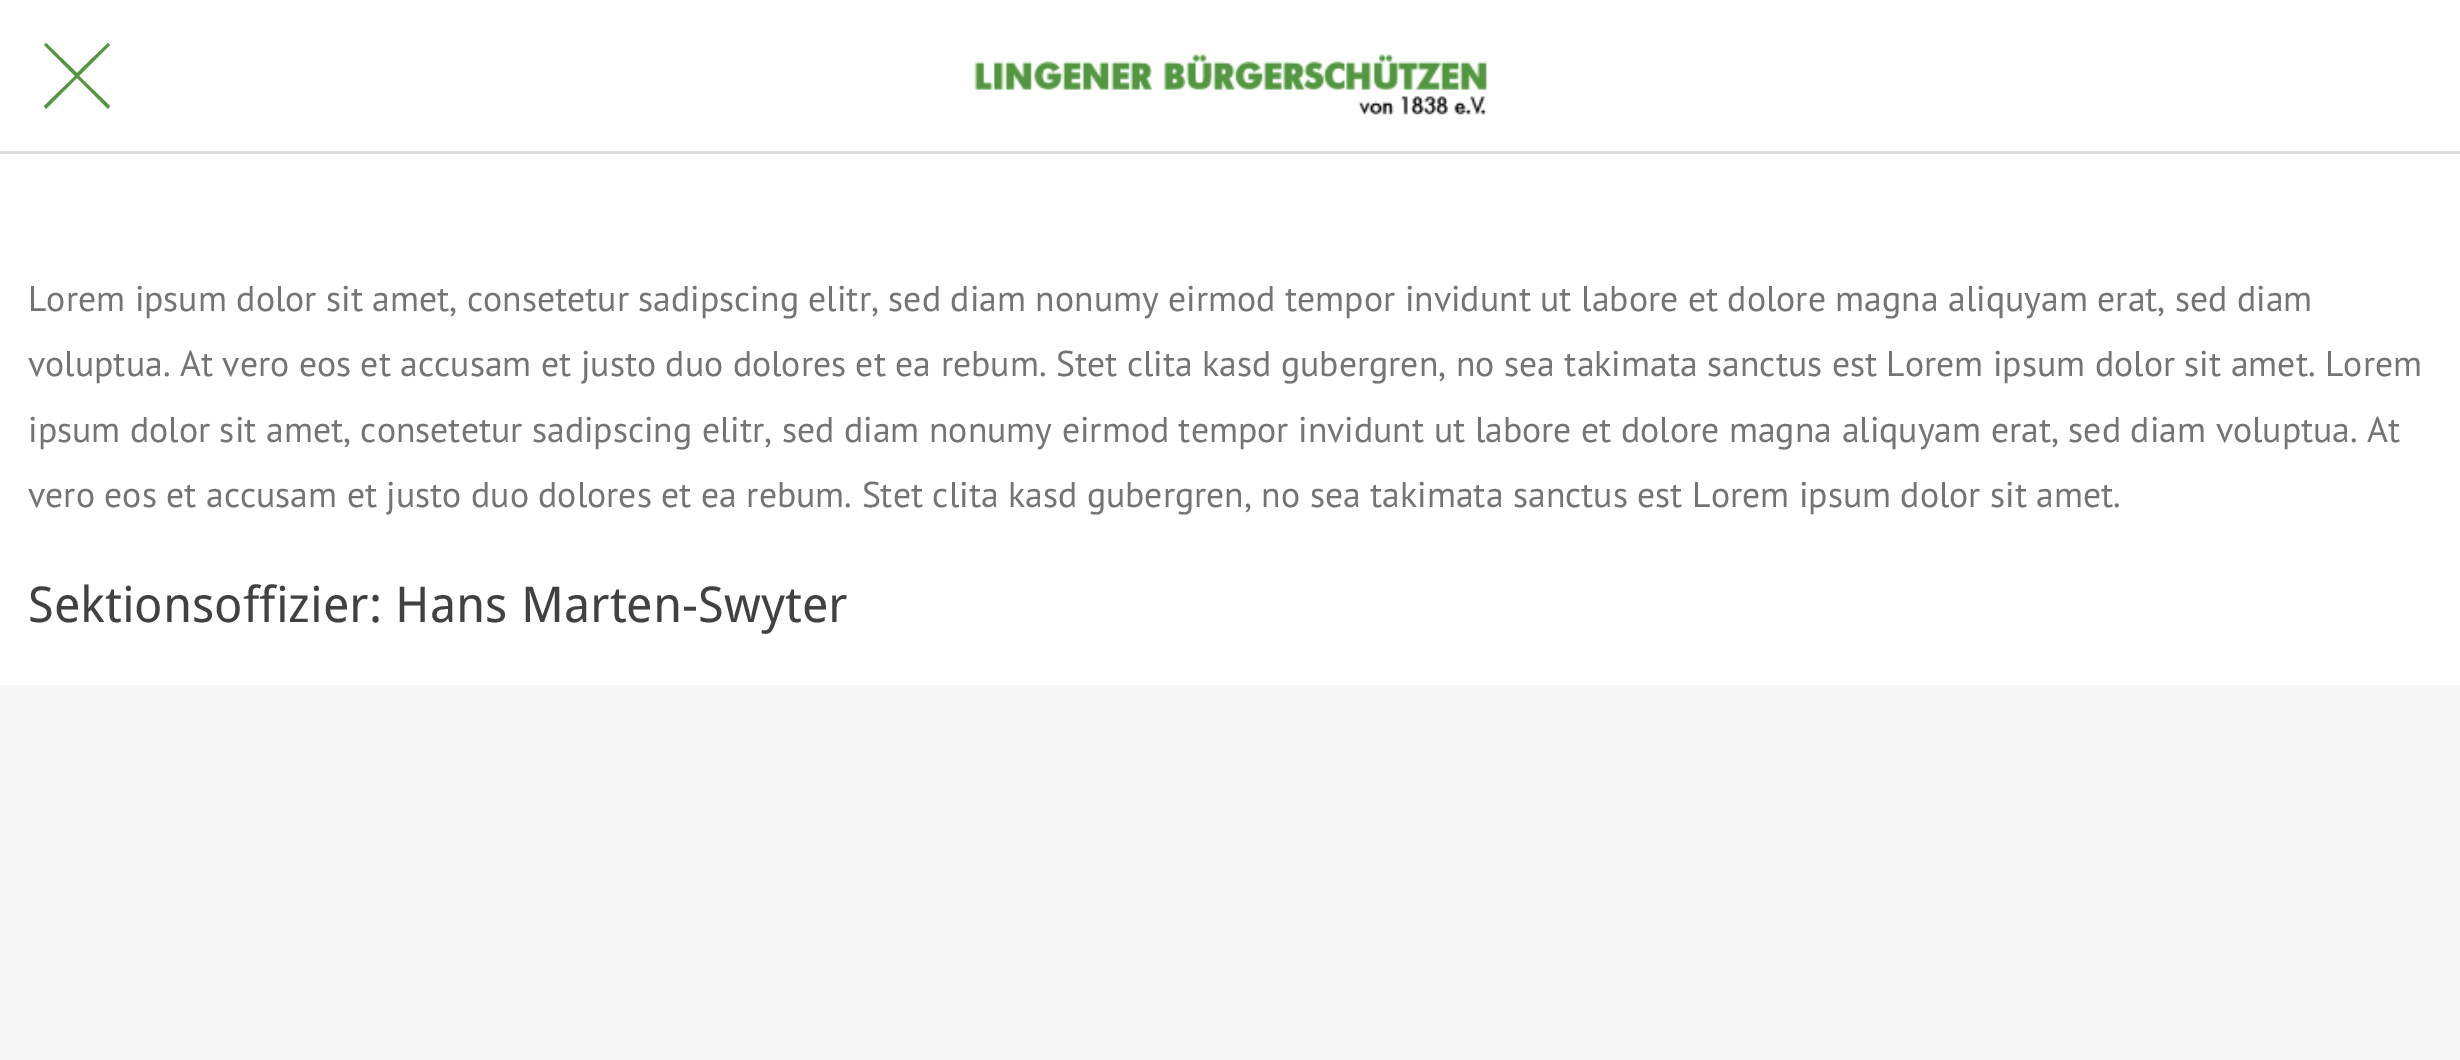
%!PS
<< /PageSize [2460 1060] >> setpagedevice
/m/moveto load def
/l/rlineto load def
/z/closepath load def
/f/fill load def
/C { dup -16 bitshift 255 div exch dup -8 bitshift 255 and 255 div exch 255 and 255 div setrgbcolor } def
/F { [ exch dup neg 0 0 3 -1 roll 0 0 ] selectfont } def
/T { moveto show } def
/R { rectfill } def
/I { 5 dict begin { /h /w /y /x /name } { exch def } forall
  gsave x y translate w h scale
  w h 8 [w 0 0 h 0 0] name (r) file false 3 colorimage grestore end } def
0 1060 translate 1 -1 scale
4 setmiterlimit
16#F7F7F7 C
0 0 2460 1060 R
16#FFFFFF C
0 0 2460 151 R
16#DDDDDD C
0 151 2460 3 R
16#52963F C
110 45 m -2 -2 l -31 30 l -31 -30 l -2 2 l 31 31 l -31 30 l 2 3 l 31 -31 l 31 31 l 2 -3 l -31 -30 l z f
(1.rgb) 974 54 513 61 I
16#FFFFFF C
0 154 2460 531 R
/PTSans-Regular 35.75 F
16#747474 C
(Lorem ipsum dolor sit amet, consetetur sadipscing elitr, sed diam nonumy eirmod tempor invidunt ut labore et dolore magna aliquyam erat, sed diam) 28 311 T
(voluptua. At vero eos et accusam et justo duo dolores et ea rebum. Stet clita kasd gubergren, no sea takimata sanctus est Lorem ipsum dolor sit amet. Lorem) 28 376 T
(ipsum dolor sit amet, consetetur sadipscing elitr, sed diam nonumy eirmod tempor invidunt ut labore et dolore magna aliquyam erat, sed diam voluptua. At) 28 442 T
(vero eos et accusam et justo duo dolores et ea rebum. Stet clita kasd gubergren, no sea takimata sanctus est Lorem ipsum dolor sit amet.) 28 507 T
/DroidSans-Regular 49.5 F
16#43413F C
(Sektionsoffizier: Hans Marten-Swyter) 28 622 T
showpage
